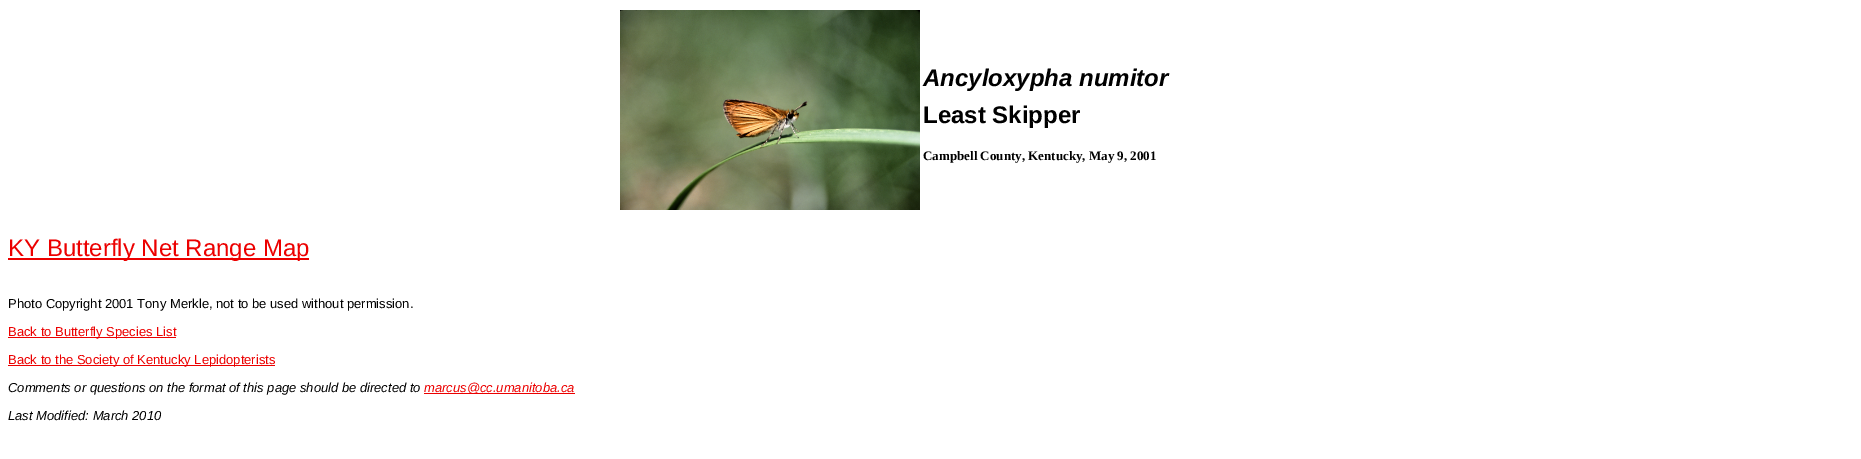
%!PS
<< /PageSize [1861 459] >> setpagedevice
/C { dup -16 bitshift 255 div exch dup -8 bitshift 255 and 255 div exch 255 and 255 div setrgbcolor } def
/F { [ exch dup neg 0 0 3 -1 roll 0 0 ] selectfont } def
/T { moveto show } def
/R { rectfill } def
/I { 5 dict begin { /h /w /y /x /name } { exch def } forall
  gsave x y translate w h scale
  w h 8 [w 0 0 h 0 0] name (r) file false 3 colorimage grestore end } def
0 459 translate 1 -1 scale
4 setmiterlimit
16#FFFFFF C
0 0 1861 459 R
(1.rgb) 620 10 300 200 I
/LiberationSans-BoldItalic 24 F
16#000000 C
(Ancyloxypha numitor) 923 86 T
/LiberationSans-Bold 24 F
(Least Skipper) 923 123 T
/LiberationSerif-Bold 13 F
(Campbell County, Kentucky, May 9, 2001) 923 160 T
16#EC0000 C
8 258 301 2 R
/LiberationSans-Regular 24 F
(KY Butterfly Net Range Map) 8 256 T
/LiberationSans-Regular 13 F
16#000000 C
(Photo Copyright 2001 Tony Merkle, not to be used without permission.) 8 308 T
16#EC0000 C
8 337 168 1 R
(Back to Butterfly Species List) 8 336 T
8 365 267 1 R
(Back to the Society of Kentucky Lepidopterists) 8 364 T
/LiberationSans-Italic 13 F
16#000000 C
(Comments or questions on the format of this page should be directed to) 8 392 T
16#EC0000 C
424 393 151 1 R
(marcus@cc.umanitoba.ca) 424 392 T
16#000000 C
(Last Modified: March 2010) 8 420 T
showpage
